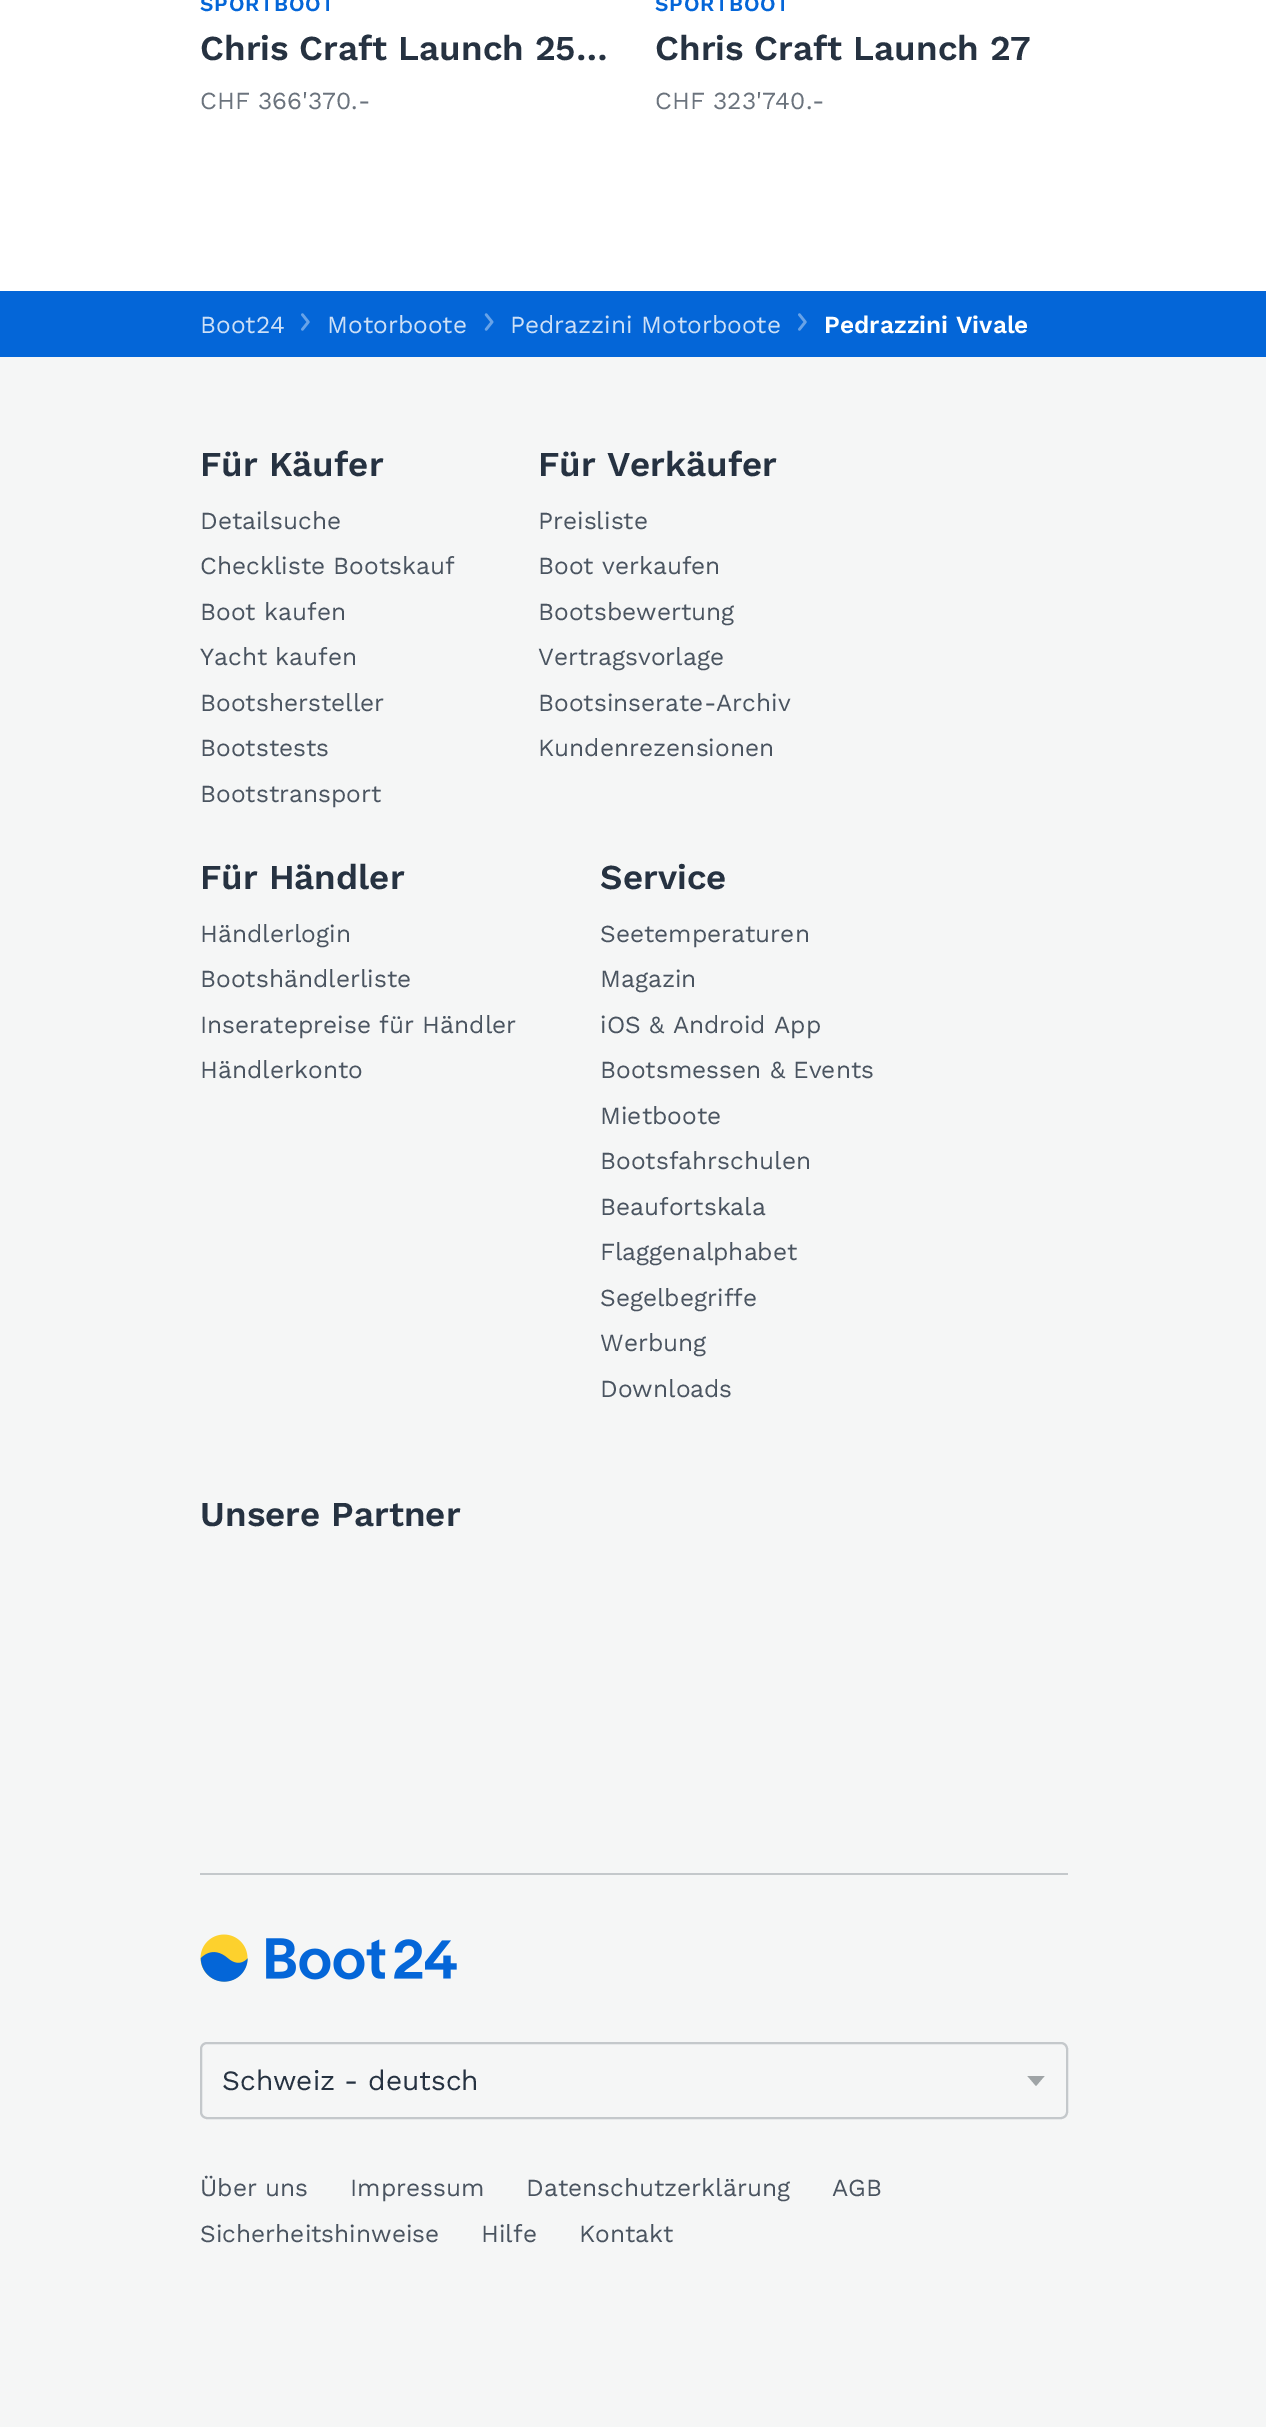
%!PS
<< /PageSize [1266 2427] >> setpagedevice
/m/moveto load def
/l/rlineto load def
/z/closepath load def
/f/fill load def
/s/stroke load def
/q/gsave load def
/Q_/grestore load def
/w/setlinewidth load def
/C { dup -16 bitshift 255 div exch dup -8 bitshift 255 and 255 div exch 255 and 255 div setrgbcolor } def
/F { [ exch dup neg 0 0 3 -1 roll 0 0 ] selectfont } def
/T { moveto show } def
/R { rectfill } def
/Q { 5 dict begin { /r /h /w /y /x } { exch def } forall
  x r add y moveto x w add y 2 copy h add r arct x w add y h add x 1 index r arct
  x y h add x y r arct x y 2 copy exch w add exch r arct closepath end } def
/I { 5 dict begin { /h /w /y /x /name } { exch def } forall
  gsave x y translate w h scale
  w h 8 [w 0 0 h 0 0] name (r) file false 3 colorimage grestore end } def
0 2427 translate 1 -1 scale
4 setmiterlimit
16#FFFFFF C
0 0 1266 2427 R
/WorkSans-SemiBold 21 F
16#0466D8 C
200 11 m .75 0 (SPORTBOOT) ashow
/WorkSans-SemiBold 35 F
16#263241 C
(Chris Craft Launch 25…) 200 60 T
/WorkSans-Regular 24.5 F
16#6B737D C
(CHF 366'370.-) 200 109 T
/WorkSans-SemiBold 21 F
16#0466D8 C
655 11 m .75 0 (SPORTBOOT) ashow
/WorkSans-SemiBold 35 F
16#263241 C
(Chris Craft Launch 27) 655 60 T
/WorkSans-Regular 24.5 F
16#6B737D C
(CHF 323'740.-) 655 109 T
16#0466D8 C
0 291 1266 66 R
16#CDE0F7 C
(Boot24) 200 333 T
(1.rgb) 301 313 9 18 I
(Motorboote) 327 333 T
(2.rgb) 484 313 10 18 I
(Pedrazzini Motorboote) 510 333 T
(1.rgb) 798 313 9 18 I
/WorkSans-SemiBold 24.5 F
16#FFFFFF C
(Pedrazzini Vivale) 824 333 T
16#F5F6F6 C
0 357 1266 2070 R
16#C4C8CB C
200 1873 868 2 R
/WorkSans-SemiBold 35 F
16#263241 C
(Für Käufer) 200 476 T
/WorkSans-Regular 24.5 F
16#4A5460 C
(Detailsuche) 200 529 T
(Checkliste Bootskauf) 200 574 T
(Boot kaufen) 200 620 T
(Yacht kaufen) 200 665 T
(Bootshersteller) 200 711 T
(Bootstests) 200 756 T
(Bootstransport) 200 802 T
/WorkSans-SemiBold 35 F
16#263241 C
(Für Verkäufer) 538 476 T
/WorkSans-Regular 24.5 F
16#4A5460 C
(Preisliste) 538 529 T
(Boot verkaufen) 538 574 T
(Bootsbewertung) 538 620 T
(Vertragsvorlage) 538 665 T
(Bootsinserate-Archiv) 538 711 T
(Kundenrezensionen) 538 756 T
/WorkSans-SemiBold 35 F
16#263241 C
(Für Händler) 200 889 T
/WorkSans-Regular 24.5 F
16#4A5460 C
(Händlerlogin) 200 942 T
(Bootshändlerliste) 200 987 T
(Inseratepreise für Händler) 200 1033 T
(Händlerkonto) 200 1078 T
/WorkSans-SemiBold 35 F
16#263241 C
(Service) 600 889 T
/WorkSans-Regular 24.5 F
16#4A5460 C
(Seetemperaturen) 600 942 T
(Magazin) 600 987 T
(iOS & Android App) 600 1033 T
(Bootsmessen & Events) 600 1078 T
(Mietboote) 600 1124 T
(Bootsfahrschulen) 600 1169 T
(Beaufortskala) 600 1215 T
(Flaggenalphabet) 600 1260 T
(Segelbegriffe) 600 1306 T
(Werbung) 600 1351 T
(Downloads) 600 1397 T
/WorkSans-SemiBold 35 F
16#263241 C
(Unsere Partner) 200 1526 T
(3.rgb) 200 1934 257 48 I
q
1027 2076 18 10 rectclip
16#9FA4A6 C
1027 2075.5 m 9 10.5 l 9 -10.5 l z f
Q_
16#C4C8CB C
2 w
201 2043 866 75 6 Q s
/WorkSans-Regular 28 F
16#263241 C
(Schweiz - deutsch) 222 2090 T
/WorkSans-Regular 24.5 F
16#4A5460 C
(Über uns) 200 2196 T
(Impressum) 350 2196 T
(Datenschutzerklärung) 526 2196 T
(AGB) 832 2196 T
(Sicherheitshinweise) 200 2242 T
(Hilfe) 481 2242 T
(Kontakt) 579 2242 T
showpage
